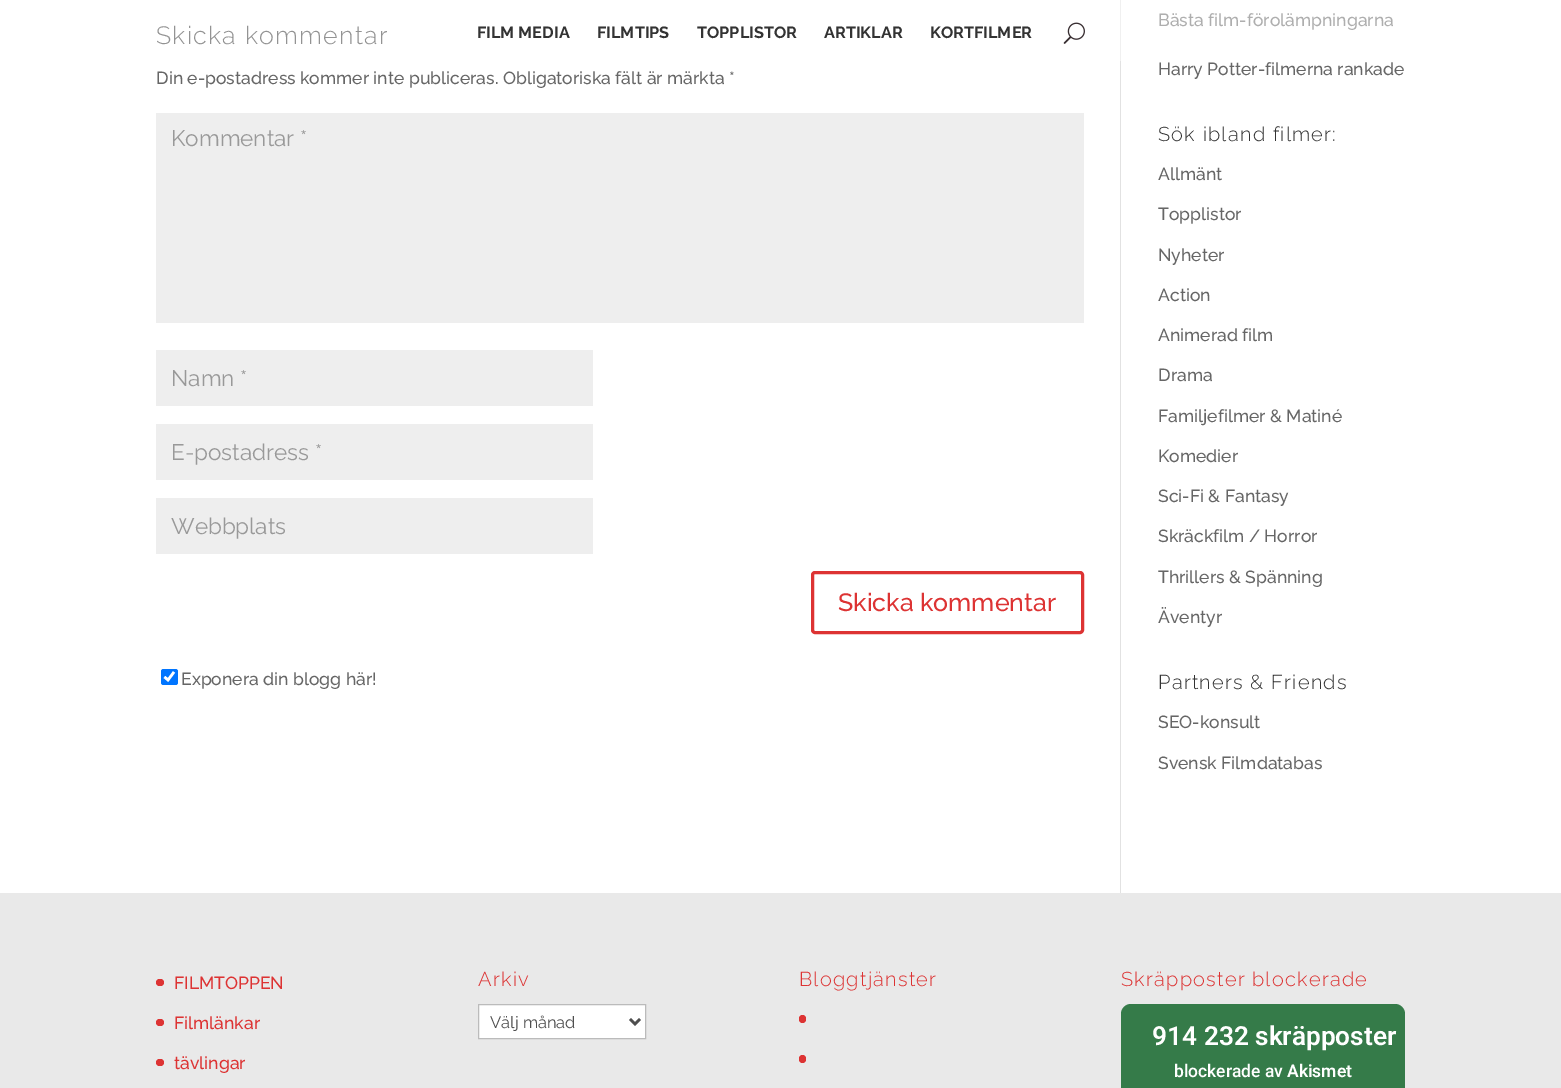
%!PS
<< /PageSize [1561 1088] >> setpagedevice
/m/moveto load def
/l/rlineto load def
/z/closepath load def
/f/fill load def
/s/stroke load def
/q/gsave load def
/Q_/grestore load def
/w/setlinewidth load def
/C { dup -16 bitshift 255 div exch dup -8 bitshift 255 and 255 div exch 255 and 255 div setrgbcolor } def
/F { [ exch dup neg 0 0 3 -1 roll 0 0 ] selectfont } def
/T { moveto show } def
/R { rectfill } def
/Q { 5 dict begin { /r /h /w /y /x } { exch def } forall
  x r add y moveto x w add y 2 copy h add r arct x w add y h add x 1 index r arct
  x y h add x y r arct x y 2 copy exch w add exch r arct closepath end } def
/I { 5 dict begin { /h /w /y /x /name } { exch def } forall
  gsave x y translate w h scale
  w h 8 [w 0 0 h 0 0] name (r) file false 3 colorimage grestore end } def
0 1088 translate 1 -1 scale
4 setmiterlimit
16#FFFFFF C
0 0 1561 1088 R
16#E2E2E2 C
1120 61 1 832 R
16#F0F0F0 C
1120 0 1 61 R
/Raleway-Light 25 F
16#939393 C
156 44 m 1.25 0 (Skicka kommentar) ashow
/Raleway-Medium 17.5 F
16#666666 C
(Din e-postadress kommer inte publiceras. Obligatoriska fält är märkta *) 156 84 T
16#EEEEEE C
156 113 928 210 R
/Raleway-Regular 22.5 F
16#999999 C
(Kommentar *) 171 146 T
16#EEEEEE C
156 350 437 56 R
16#999999 C
(Namn *) 171 386 T
16#EEEEEE C
156 424 437 56 R
16#999999 C
(E-postadress *) 171 460 T
16#EEEEEE C
156 498 437 56 R
16#999999 C
(Webbplats) 171 534 T
16#DD3333 C
3 w
812.5 572.5 270 60 2.5 Q s
/Raleway-Medium 25 F
(Skicka kommentar) 838 611 T
16#0075FF C
161 669 17 16 2.5 Q f
16#FFFFFF C
2.6 w
164.5 677 m 3.5 3 l 6 -8 l s
/Raleway-Medium 17.5 F
16#666666 C
(Exponera din blogg här!) 181 685 T
16#AEAEAE C
(Bästa film-förolämpningarna) 1158 26 T
16#666666 C
(Harry Potter-filmerna rankade) 1158 75 T
/Raleway-Light 20 F
16#333333 C
1158 141 m 1.25 0 (Sök ibland filmer:) ashow
/Raleway-Medium 17.5 F
16#666666 C
(Allmänt) 1158 180 T
(Topplistor) 1158 220 T
(Nyheter) 1158 261 T
(Action) 1158 301 T
(Animerad film) 1158 341 T
(Drama) 1158 381 T
(Familjefilmer & Matiné) 1158 422 T
(Komedier) 1158 462 T
(Sci-Fi & Fantasy) 1158 502 T
(Skräckfilm / Horror) 1158 542 T
(Thrillers & Spänning) 1158 583 T
(Äventyr) 1158 623 T
/Raleway-Light 20 F
16#333333 C
1158 689 m 1.25 0 (Partners & Friends) ashow
/Raleway-Medium 17.5 F
16#666666 C
(SEO-konsult) 1158 728 T
(Svensk Filmdatabas) 1158 769 T
16#E9E9E9 C
0 893 1561 195 R
16#DD3333 C
156 979 8 7 3.5 Q f
(FILMTOPPEN) 174 989 T
156 1019 8 7 3.5 Q f
(Filmlänkar) 174 1029 T
156 1059 8 7 3.5 Q f
(tävlingar) 174 1069 T
/Raleway-Light 20 F
478 986 m 1.25 0 (Arkiv) ashow
16#FFFFFF C
478.5 1004.5 m 167 0 l 0 34 l -167 0 l z q f Q_
16#BBBBBB C
1 w
s
16#4E4E4E C
2.5 w
630 1019 m 5 5 l 5 -5 l s
/Raleway-Regular 16.5 F
(Välj månad) 490 1028 T
/Raleway-Light 20 F
16#DD3333 C
799 986 m 1.25 0 (Bloggtjänster) ashow
799 1015 7 8 3.5 Q f
799 1055 7 8 3.5 Q f
1121 986 m 1.25 0 (Skräpposter blockerade) ashow
16#357B49 C
1121 1004 284 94 10 Q f
/Roboto-SemiBold 26.25 F
16#FFFFFF C
(914 232 skräpposter) 1152 1045 T
/Roboto-Medium 17.5 F
(blockerade av) 1174 1077 T
/Roboto-SemiBold 17.5 F
(Akismet) 1287 1077 T
/Raleway-Bold 16.25 F
16#333333 C
(FILM MEDIA) 477 38 T
(FILMTIPS) 597 38 T
(TOPPLISTOR) 697 38 T
(ARTIKLAR) 824 38 T
(KORTFILMER) 930 38 T
(1.rgb) 1063 22 22 22 I
showpage
